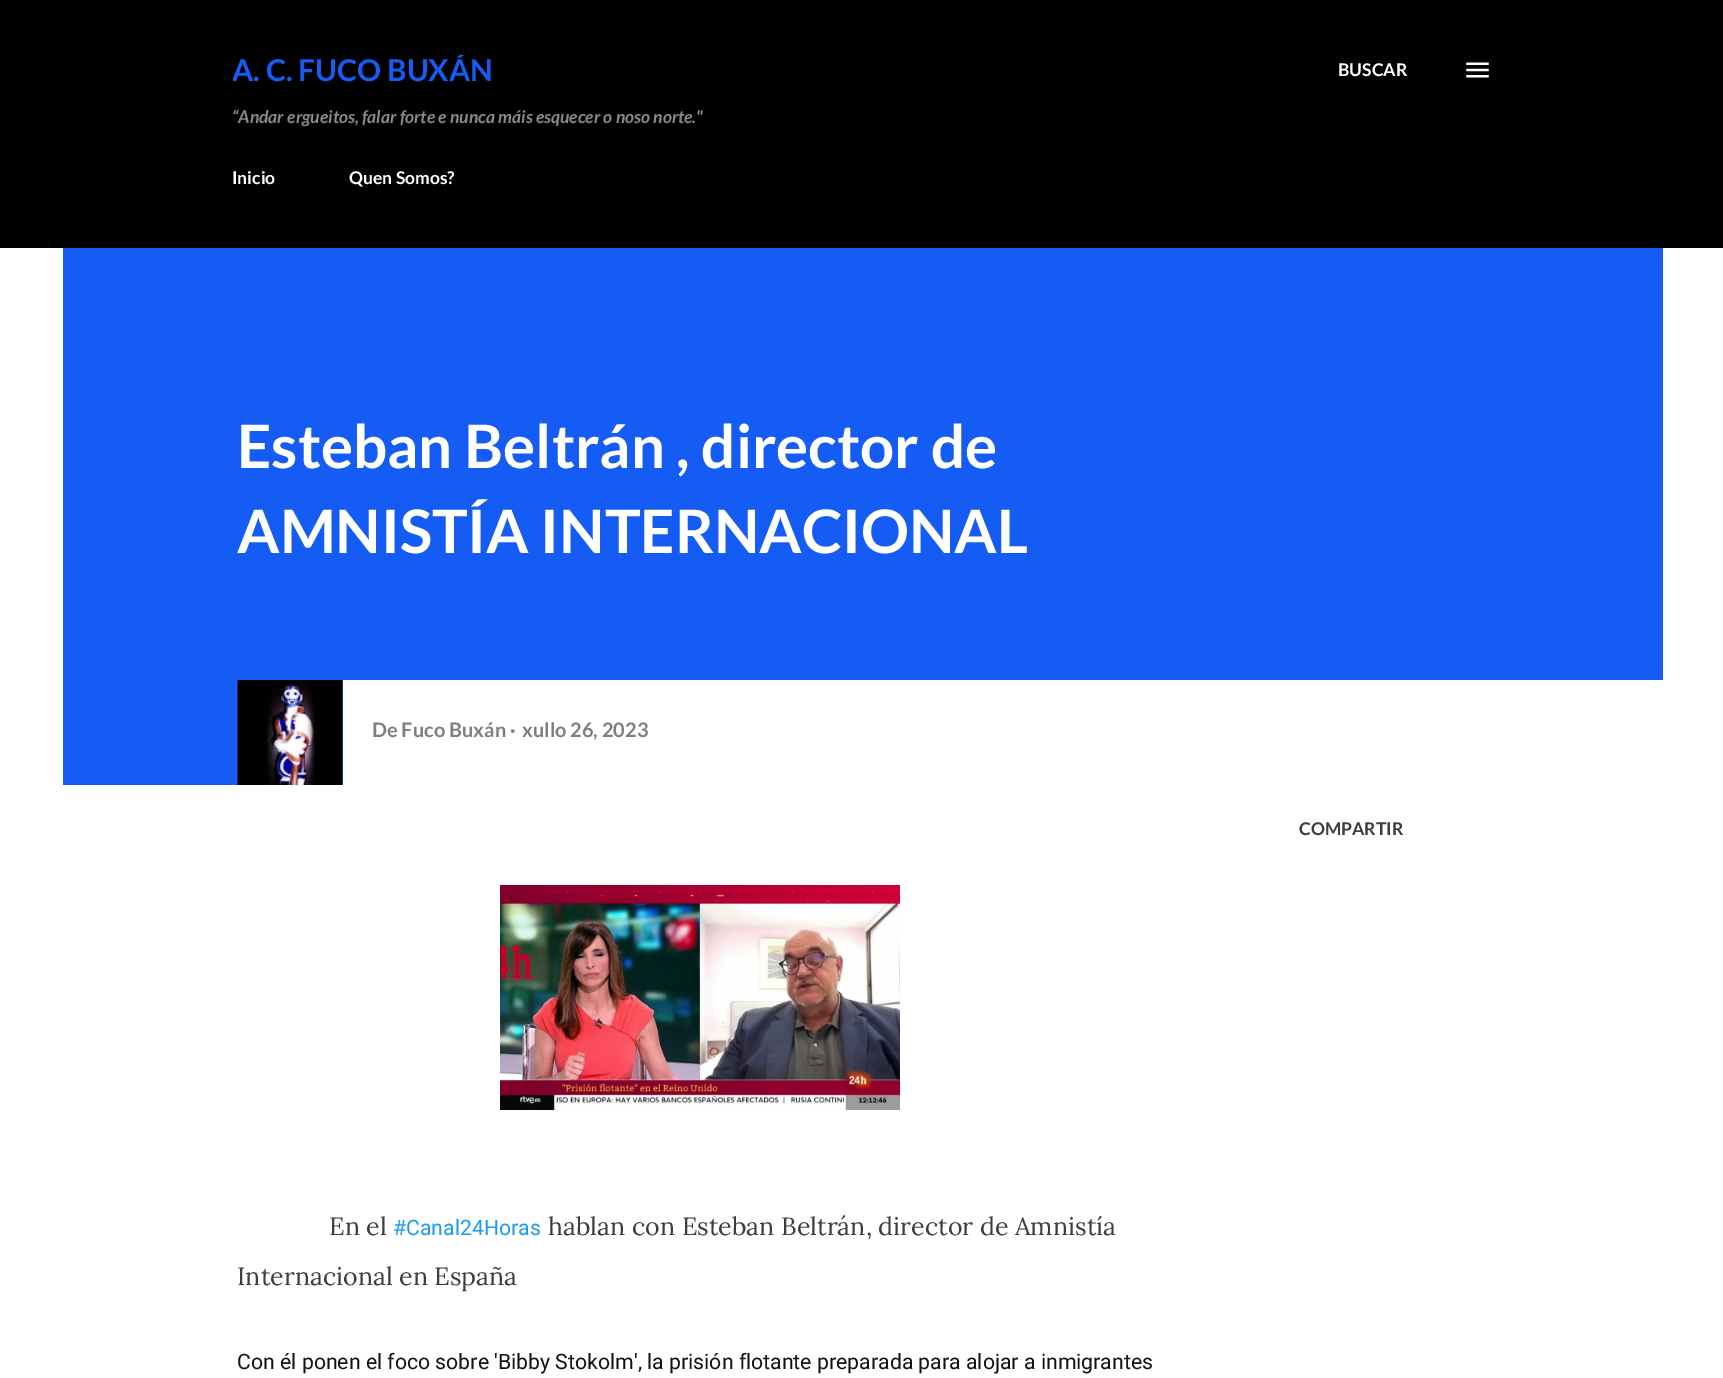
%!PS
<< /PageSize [1723 1378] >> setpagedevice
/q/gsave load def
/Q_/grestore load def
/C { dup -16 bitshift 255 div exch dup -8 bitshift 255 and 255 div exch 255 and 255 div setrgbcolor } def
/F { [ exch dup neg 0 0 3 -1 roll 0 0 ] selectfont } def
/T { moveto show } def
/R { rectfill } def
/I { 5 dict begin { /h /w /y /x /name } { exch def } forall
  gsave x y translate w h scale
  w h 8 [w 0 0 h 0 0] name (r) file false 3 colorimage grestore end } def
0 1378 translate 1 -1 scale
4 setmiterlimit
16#FFFFFF C
0 0 1723 1378 R
16#000000 C
0 0 1723 248 R
q
233 55 1175 93 rectclip
/Lato-Bold 30 F
16#145CF4 C
(A. C. FUCO BUXÁN) 232 81 T
Q_
/Lato-BoldItalic 17.5 F
16#898989 C
(“Andar ergueitos, falar forte e nunca máis esquecer o noso norte.") 232 123 T
/Lato-Bold 17.5 F
16#FFFFFF C
(BUSCAR) 1338 76 T
(1.rgb) 1466 62 23 16 I
(Inicio) 232 184 T
(Quen Somos?) 349 184 T
16#145CF4 C
63 248 1600 432 R
/Lato-Bold 60 F
16#FFFFFF C
(Esteban Beltrán , director de) 237 468 T
(AMNISTÍA INTERNACIONAL) 237 553 T
16#145CF4 C
63 680 280 105 R
(2.rgb) 237 680 106 105 I
/Lato-Bold 20 F
16#7F7F7F C
(De Fuco Buxán ·) 372 737 T
(xullo 26, 2023) 522 737 T
/Lato-Bold 17.5 F
16#3F3C3F C
(COMPARTIR) 1299 835 T
(3.rgb) 500 885 400 225 I
/Lora-Regular 25 F
(En el) 329 1235 T
/Roboto-Regular 21.25 F
16#1D9BF0 C
(#Canal24Horas) 393 1235 T
/Lora-Regular 25 F
16#3F3C3F C
(hablan con Esteban Beltrán, director de Amnistía) 548 1235 T
(Internacional en España) 237 1285 T
/Roboto-Regular 21.25 F
16#0F1419 C
(Con él ponen el foco sobre 'Bibby Stokolm', la prisión flotante preparada para alojar a inmigrantes) 237 1369 T
showpage
